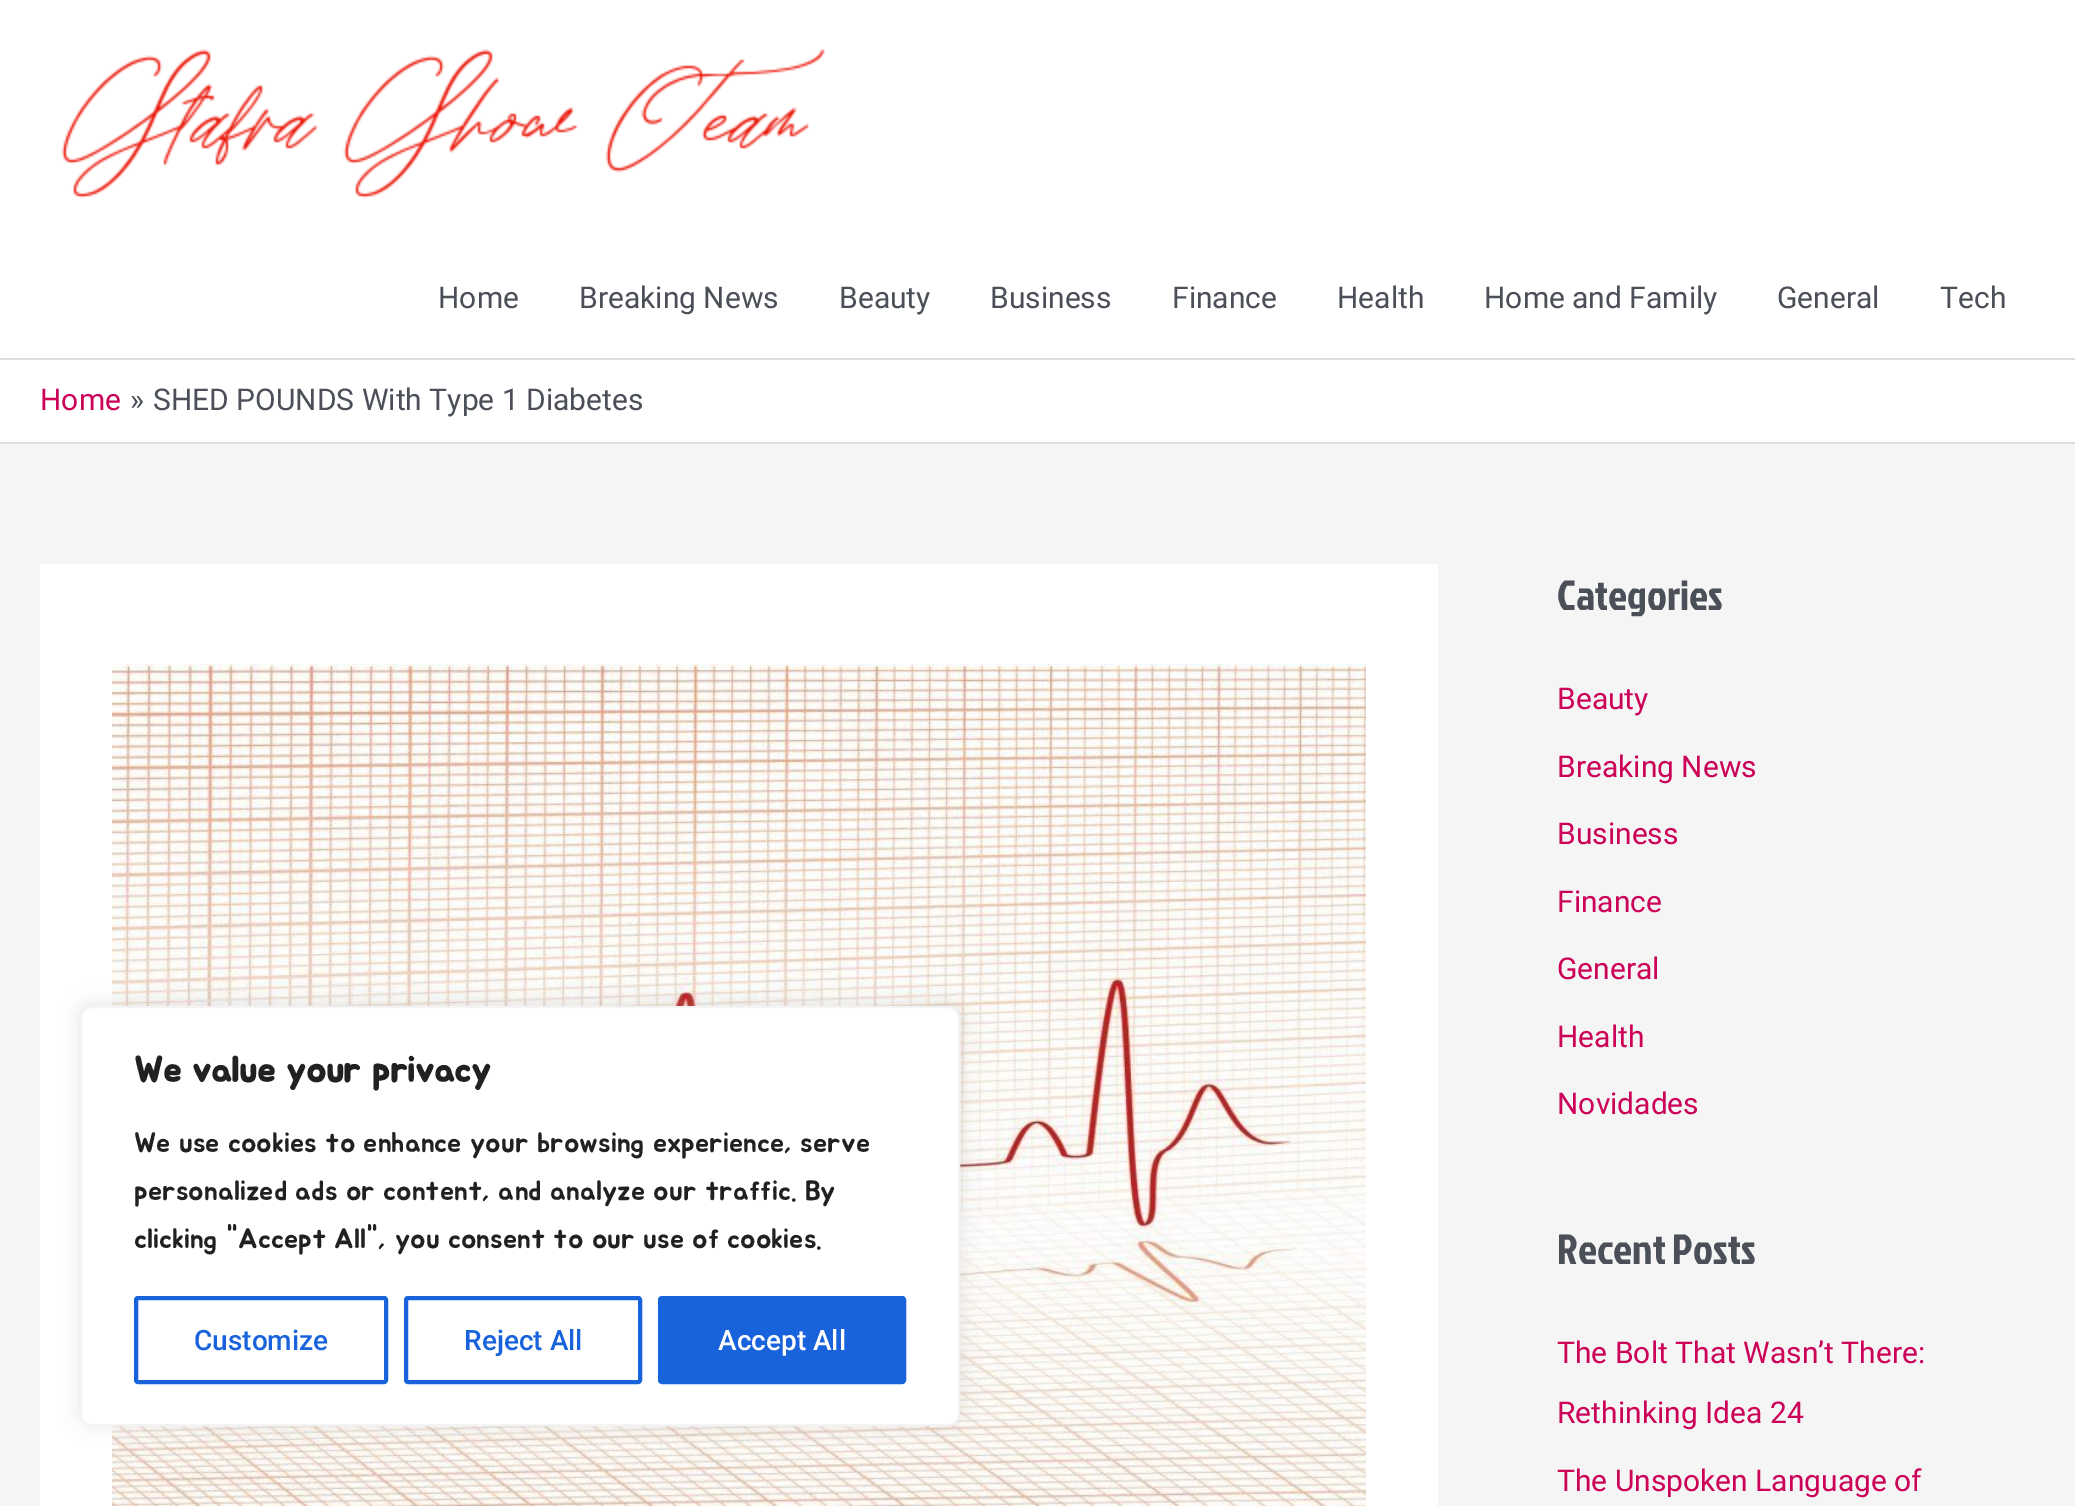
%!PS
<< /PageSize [2075 1506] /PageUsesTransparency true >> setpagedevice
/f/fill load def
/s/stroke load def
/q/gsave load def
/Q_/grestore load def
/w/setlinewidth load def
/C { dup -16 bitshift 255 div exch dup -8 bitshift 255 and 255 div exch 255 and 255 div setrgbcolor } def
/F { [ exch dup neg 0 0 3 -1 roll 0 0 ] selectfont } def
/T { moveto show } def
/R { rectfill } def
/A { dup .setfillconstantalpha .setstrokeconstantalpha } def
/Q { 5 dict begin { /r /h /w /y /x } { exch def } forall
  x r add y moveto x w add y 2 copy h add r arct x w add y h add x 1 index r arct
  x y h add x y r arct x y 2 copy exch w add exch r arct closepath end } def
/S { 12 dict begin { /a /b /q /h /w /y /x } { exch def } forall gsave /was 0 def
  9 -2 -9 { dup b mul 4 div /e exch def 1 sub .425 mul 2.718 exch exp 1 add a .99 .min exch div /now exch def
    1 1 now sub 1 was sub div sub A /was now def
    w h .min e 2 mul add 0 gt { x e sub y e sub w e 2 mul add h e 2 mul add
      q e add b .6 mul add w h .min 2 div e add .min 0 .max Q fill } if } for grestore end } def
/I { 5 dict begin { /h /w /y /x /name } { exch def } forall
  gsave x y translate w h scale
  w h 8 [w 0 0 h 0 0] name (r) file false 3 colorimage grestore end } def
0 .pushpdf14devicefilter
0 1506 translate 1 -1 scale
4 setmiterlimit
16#F5F5F5 C
0 0 2075 1506 R
16#FFFFFF C
0 0 2075 358 R
16#DDDDDD C
0 358 2075 2 R
(1.rgb) 61 49 764 150 I
/Roboto-Regular 30 F
16#4B4F58 C
(Home) 438 308 T
(Breaking News) 579 308 T
(Beauty) 839 308 T
(Business) 990 308 T
(Finance) 1172 308 T
(Health) 1337 308 T
(Home and Family) 1484 308 T
(General) 1777 308 T
(Tech) 1940 308 T
16#FFFFFF C
0 360 2075 82 R
16#DDDDDD C
0 442 2075 2 R
16#CC0259 C
(Home) 40 410 T
16#4B4F58 C
(») 130 410 T
(SHED POUNDS With Type 1 Diabetes) 153 410 T
16#FFFFFF C
40 564 1398 942 R
(2.rgb) 112 664 1254 842 I
/JockeyOne-Regular 42 F
16#4B4F58 C
(Categories) 1557 610 T
/Roboto-Regular 30 F
16#CC0259 C
(Beauty) 1557 709 T
(Breaking News) 1557 777 T
(Business) 1557 844 T
(Finance) 1557 912 T
(General) 1557 979 T
(Health) 1557 1047 T
(Novidades) 1557 1114 T
/JockeyOne-Regular 42 F
16#4B4F58 C
(Recent Posts) 1557 1264 T
/Roboto-Regular 30 F
16#CC0259 C
(The Bolt That Wasn’t There:) 1557 1363 T
(Rethinking Idea 24) 1557 1423 T
(The Unspoken Language of) 1557 1491 T
16#ACABAB C
80 1004 880 420 12 10 .3 S
16#FFFFFF C
81 1007 878 418 11 Q q f Q_
16#F4F4F4 C
2 w
s
/Jua-Bold 36 F
16#212121 C
(We value your privacy) 134 1082 T
/Jua-Regular 28 F
(We use cookies to enhance your browsing experience, serve) 134 1152 T
(personalized ads or content, and analyze our traffic. By) 134 1200 T
(clicking "Accept All", you consent to our use of cookies.) 134 1248 T
16#1863DC C
4 w
136 1298 250 84 2 Q s
/Roboto-Medium 28 F
(Customize) 194 1350 T
406 1298 234 84 2 Q s
(Reject All) 464 1350 T
660 1298 244 84 2 Q q f Q_
s
16#FFFFFF C
(Accept All) 718 1350 T
.poppdf14devicefilter showpage
